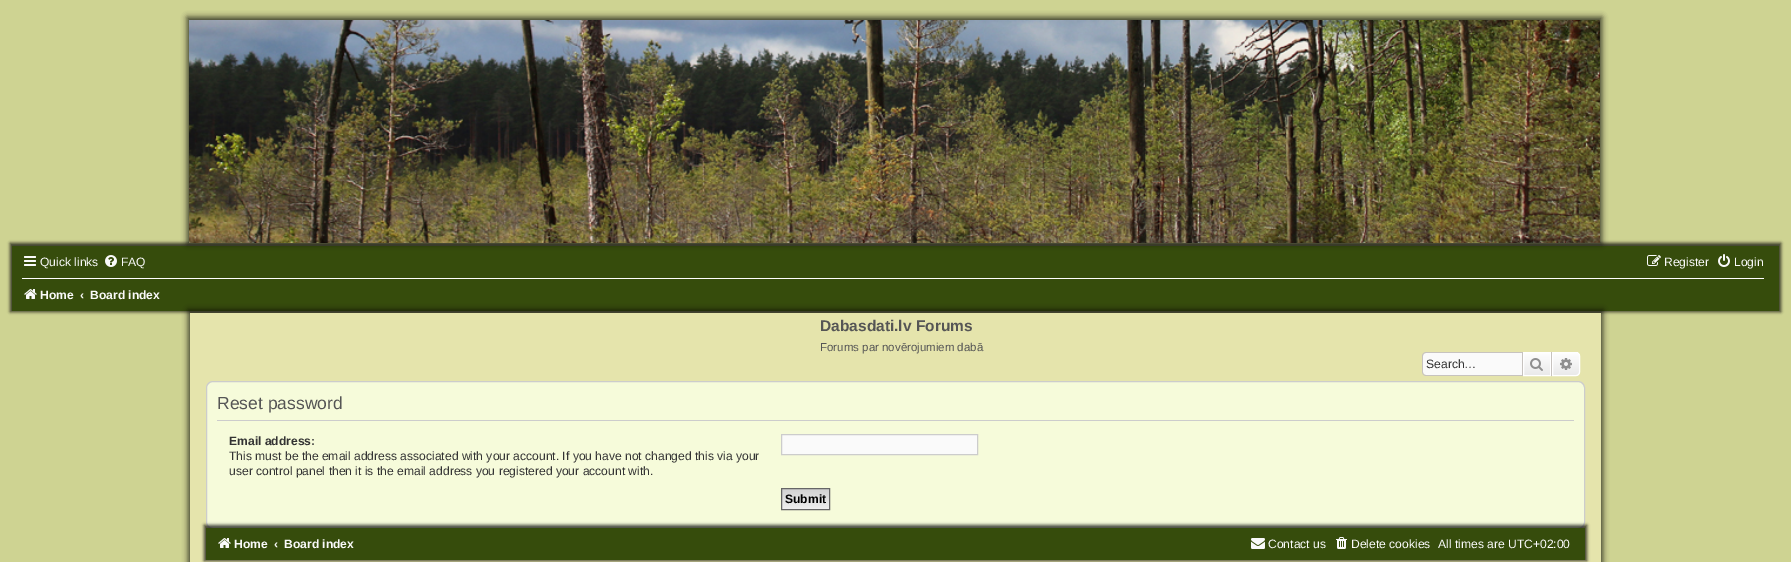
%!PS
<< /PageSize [1791 562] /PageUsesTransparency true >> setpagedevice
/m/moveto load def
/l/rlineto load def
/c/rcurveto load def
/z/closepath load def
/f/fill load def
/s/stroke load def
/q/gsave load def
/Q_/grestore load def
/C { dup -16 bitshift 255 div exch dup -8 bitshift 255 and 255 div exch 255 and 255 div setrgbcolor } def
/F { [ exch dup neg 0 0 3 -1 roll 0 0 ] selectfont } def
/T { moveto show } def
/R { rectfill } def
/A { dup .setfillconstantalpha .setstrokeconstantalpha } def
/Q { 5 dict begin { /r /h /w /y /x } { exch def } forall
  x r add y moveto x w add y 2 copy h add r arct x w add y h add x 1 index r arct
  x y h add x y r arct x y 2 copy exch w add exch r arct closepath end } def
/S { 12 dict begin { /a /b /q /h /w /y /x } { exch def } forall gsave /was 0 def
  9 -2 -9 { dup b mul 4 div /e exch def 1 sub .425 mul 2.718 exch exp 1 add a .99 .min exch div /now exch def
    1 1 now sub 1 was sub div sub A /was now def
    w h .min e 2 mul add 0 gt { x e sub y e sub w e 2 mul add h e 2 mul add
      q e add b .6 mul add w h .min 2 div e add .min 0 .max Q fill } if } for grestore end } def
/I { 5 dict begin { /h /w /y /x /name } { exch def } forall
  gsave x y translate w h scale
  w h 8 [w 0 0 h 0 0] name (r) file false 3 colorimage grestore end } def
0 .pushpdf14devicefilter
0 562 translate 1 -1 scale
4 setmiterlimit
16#CED392 C
0 0 1791 562 R
16#020202 C
10 243 1771 69 0 1.5 .7 S
16#364C0C C
12 246 1767 65 R
16#020202 C
187 17 1415 227 0 3 .7 S
(1.rgb) 189 20 1411 223 I
(2.rgb) 24 256 12 10 I
/LiberationSans-Regular 12.1 F
16#FAFAFA C
(Quick links) 40 266 T
(3.rgb) 105 255 12 12 I
(FAQ) 121 266 T
(4.rgb) 1647 255 14 11 I
(Register) 1664 266 T
(5.rgb) 1718 254 12 13 I
(Login) 1734 266 T
16#FFFFFF C
22 278 1742 1 R
(6.rgb) 24 289 13 10 I
/LiberationSans-Bold 12.1 F
16#FAFAFA C
(Home) 40 299 T
(‹) 80 299 T
(Board index) 90 299 T
16#020202 C
188 310 1415 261 0 3 .7 S
16#E5E4AC C
190 313 1411 249 R
/LiberationSans-Bold 15.5 F
16#555555 C
(Dabasdati.lv Forums) 820 331 T
/LiberationSans-Regular 11.5 F
(Forums par novērojumiem dabā) 820 351 T
16#FAFAFA C
1426 353 m 96 0 l 0 22 l -96 0 l -1.5 0 -3 -1.5 -3 -3 c 0 -16 l 0 -1.5 1.5 -3 3 -3 c z f
16#C7C3BF C
1426 352 m 96 0 l 0 24 l -96 0 l -2 0 -4 -2 -4 -4 c 0 -16 l 0 -2 2 -4 4 -4 c z 1426 353 m 96 0 l 0 22 l -96 0 l -2 0 -3 -1 -3 -3 c 0 -16 l 0 -2 1 -3 3 -3 c z eofill
/LiberationSans-Regular 12.1 F
16#333333 C
(Search…) 1426 368 T
q 1524 353 m 26 0 l 0 22 l -26 0 l z clip newpath
<< /ShadingType 2 /ColorSpace /DeviceRGB /Coords [1537 352 1537 376] /Extend [true true] /Function << /FunctionType 2 /Domain [0 1] /C0 [1 1 1] /C1 [.914 .914 .914] /N 1 >> >> shfill Q_
16#FFFFFF C
1523.5 352.5 27 23 rectstroke
16#C7C3BF C
1551 352 1 24 R
1522 352 1 24 R
(7.rgb) 1530 358 13 13 I
q 1552.5 352.5 m 23.5 0 l 2 0 3.5 1.5 3.5 3.5 c 0 16 l 0 2 -1.5 3.5 -3.5 3.5 c -23.5 0 l z clip newpath
<< /ShadingType 2 /ColorSpace /DeviceRGB /Coords [1566 352 1566 376] /Extend [true true] /Function << /FunctionType 2 /Domain [0 1] /C0 [1 1 1] /C1 [.914 .914 .914] /N 1 >> >> shfill Q_
16#FFFFFF C
1552.5 352.5 m 23.5 0 l 2 0 3.5 1.5 3.5 3.5 c 0 16 l 0 2 -1.5 3.5 -3.5 3.5 c -23.5 0 l z s
(8.rgb) 1560 358 12 12 I
16#F6FBDA C
206.5 381.5 1378 147 6.5 Q q f Q_
16#CCCCCC C
s
217 420 1357 1 R
/LiberationSans-Regular 17.5 F
16#555555 C
(Reset password) 217 409 T
/LiberationSans-Bold 12.1 F
16#333333 C
(Email address:) 229 445 T
/LiberationSans-Regular 12.1 F
(This must be the email address associated with your account. If you have not changed this via your) 229 460 T
(user control panel then it is the email address you registered your account with.) 229 475 T
16#FAFAFA C
781.5 434.5 m 196 0 l 0 20 l -196 0 l z q f Q_
16#CCCCCC C
s
q 782 489 m 47 0 l 0 20 l -47 0 l z clip newpath
<< /ShadingType 2 /ColorSpace /DeviceRGB /Coords [806 489 806 509] /Extend [true true] /Function << /FunctionType 2 /Domain [0 1] /C0 [.824 .824 .824] /C1 [.937 .937 .937] /N 1 >> >> shfill Q_
16#666666 C
781.5 488.5 48 21 rectstroke
/LiberationSans-Bold 12.1 F
16#000000 C
(Submit) 785 503 T
16#020202 C
204 525 1383 36 0 1.5 .7 S
16#364C0C C
206 528 1379 32 R
(6.rgb) 218 538 13 10 I
16#FAFAFA C
(Home) 234 548 T
(‹) 274 548 T
(Board index) 284 548 T
(9.rgb) 1251 538 14 11 I
/LiberationSans-Regular 12.1 F
(Contact us) 1268 548 T
(10.rgb) 1336 537 11 12 I
(Delete cookies) 1351 548 T
(All times are UTC+02:00) 1438 548 T
.poppdf14devicefilter showpage
